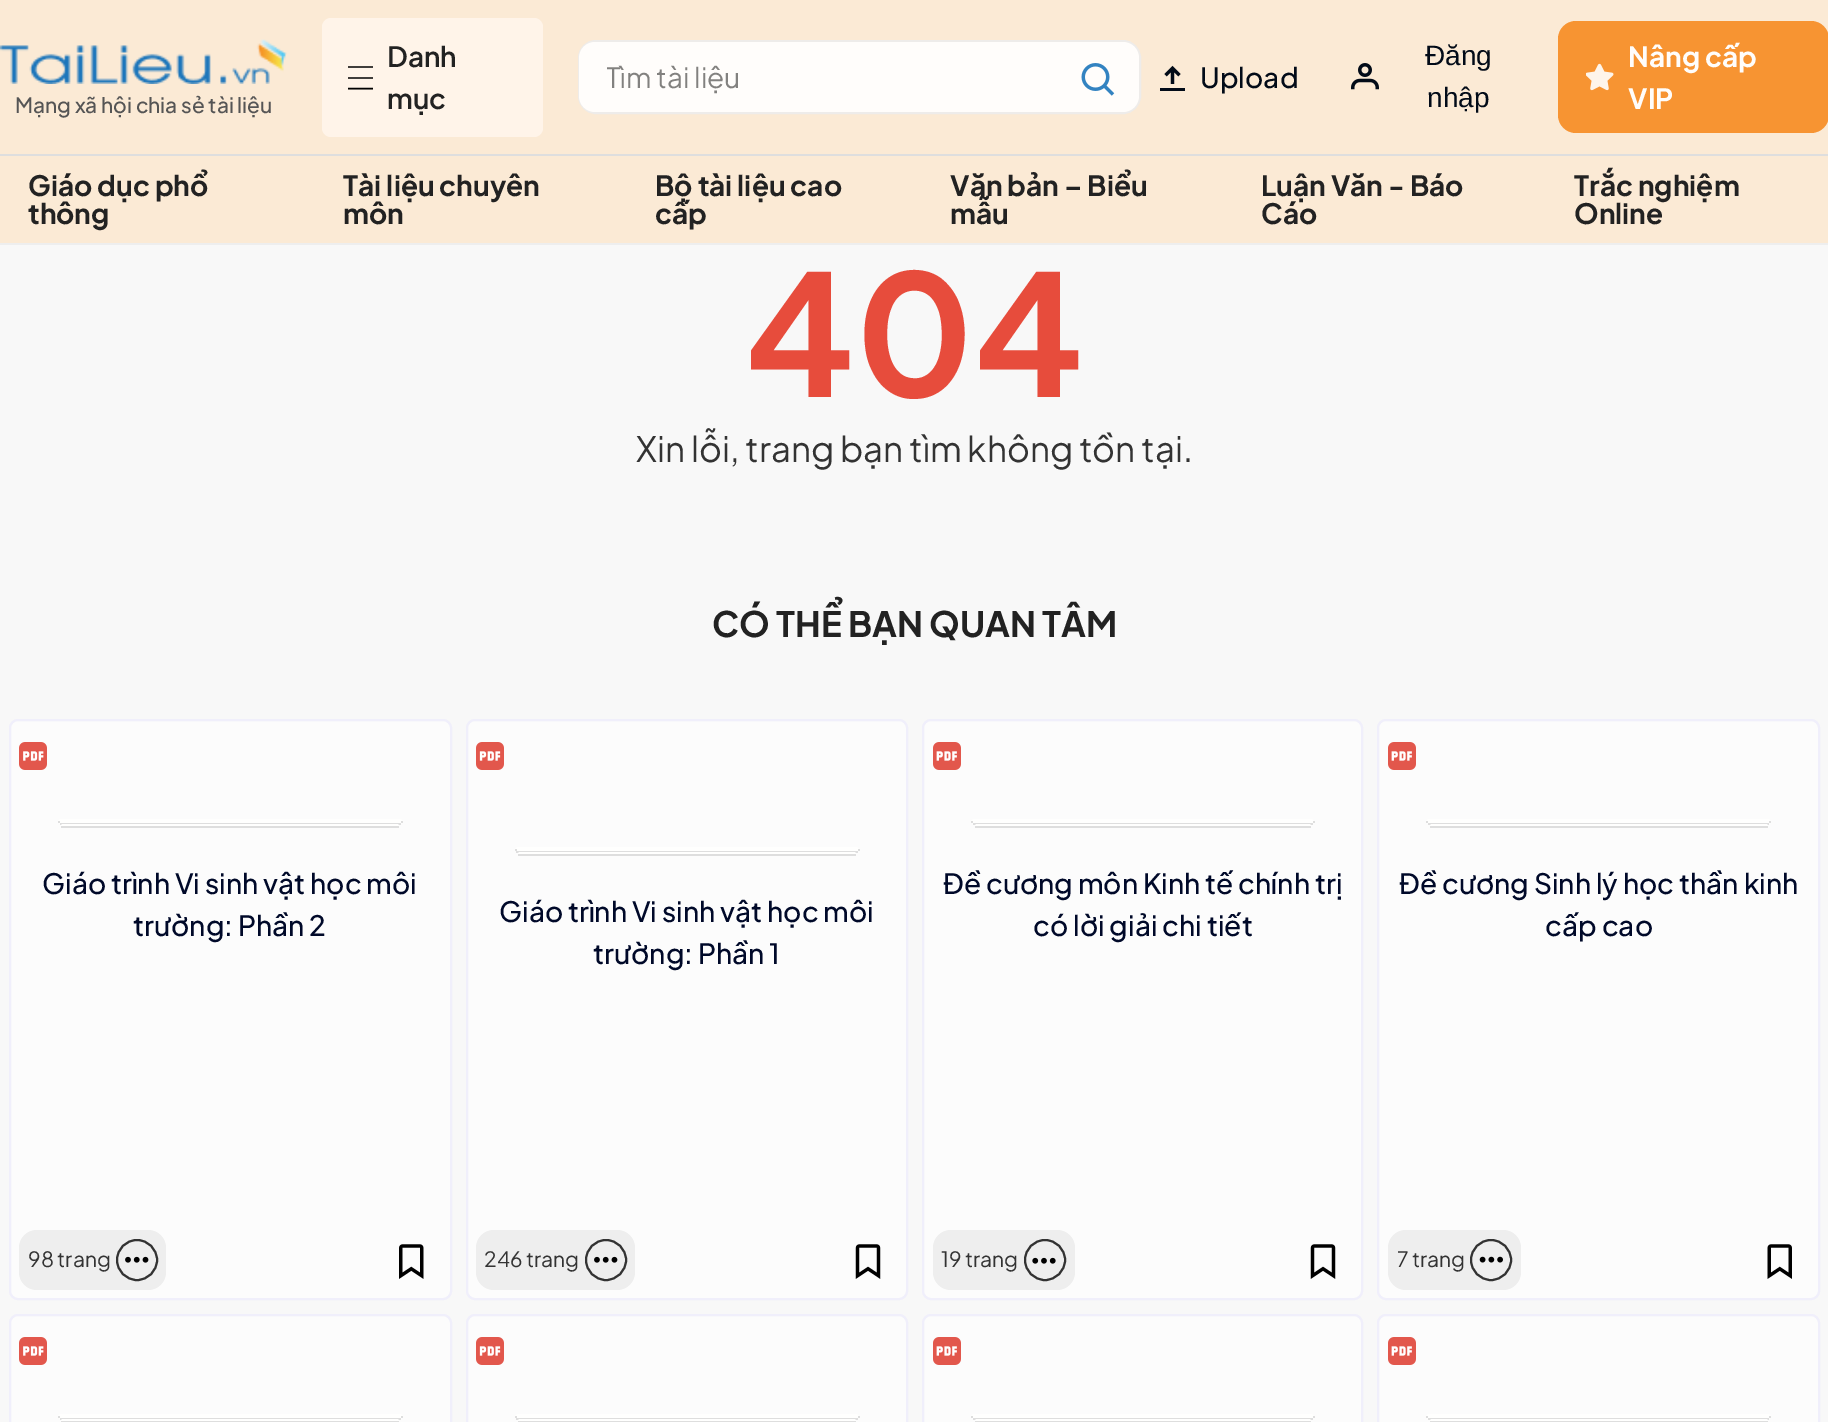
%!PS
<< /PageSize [1828 1422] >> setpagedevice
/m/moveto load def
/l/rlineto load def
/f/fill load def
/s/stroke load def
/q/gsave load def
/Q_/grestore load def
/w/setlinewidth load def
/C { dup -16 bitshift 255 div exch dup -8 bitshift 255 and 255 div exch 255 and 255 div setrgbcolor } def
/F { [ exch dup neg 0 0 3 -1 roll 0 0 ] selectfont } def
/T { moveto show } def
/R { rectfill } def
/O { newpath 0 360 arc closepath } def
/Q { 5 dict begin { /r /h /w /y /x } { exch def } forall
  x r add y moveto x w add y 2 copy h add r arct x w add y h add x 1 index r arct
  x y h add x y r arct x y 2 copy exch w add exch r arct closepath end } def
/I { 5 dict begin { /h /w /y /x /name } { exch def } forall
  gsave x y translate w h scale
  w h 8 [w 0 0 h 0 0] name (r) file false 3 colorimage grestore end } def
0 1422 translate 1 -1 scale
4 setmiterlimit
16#F8F8F8 C
0 0 1828 1422 R
16#FBEAD5 C
0 0 1828 243 R
16#DEDEDE C
0 154 1828 2 R
16#FFF4E9 C
322 18 221 119 9 Q f
16#403D3A C
348 66 25 2 R
348 77 25 2 R
16#000000 C
1.5 w
348 88.5 m 25 0 l s
/PlusJakartaSans-SemiBold 28 F
16#222222 C
(Danh) 387 67 T
(mục) 387 109 T
16#EEECEA C
2 w
579 41 561 72 17 Q s
16#FFFDFB C
579 42 560 70 16 Q f
q
607 60 501 36 rectclip
/PlusJakartaSans-Regular 28 F
16#82817F C
(Tìm tài liệu) 606 88 T
Q_
(1.rgb) 1081 63 34 33 I
(2.rgb) 0 39 287 45 I
/PlusJakartaSans-Medium 21 F
16#555555 C
(Mạng xã hội chia sẻ tài liệu) 15 113 T
(3.rgb) 1160 65 25 26 I
/PlusJakartaSans-Medium 28 F
16#020B18 C
(Upload) 1200 88 T
/LiberationSans-Regular 28 F
(Đăng) 1425 65 T
(4.rgb) 1351 63 28 27 I
(nhập) 1427 107 T
16#F79432 C
1558 21 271 112 18 Q f
/PlusJakartaSans-Bold 28 F
16#FFFDFB C
(Nâng cấp) 1628 67 T
(5.rgb) 1586 63 28 28 I
(VIP) 1628 109 T
16#EEEEEE C
0 243 1828 2 R
16#222222 C
(Giáo dục phổ) 28 196 T
(thông) 28 224 T
(Tài liệu chuyên) 343 196 T
(môn) 343 224 T
(Bộ tài liệu cao) 655 196 T
(cấp) 655 224 T
(Văn bản – Biểu) 950 196 T
(mẫu) 950 224 T
(Luận Văn - Báo) 1261 196 T
(Cáo) 1261 224 T
(Trắc nghiệm) 1574 196 T
(Online) 1574 224 T
/PlusJakartaSans-Bold 168 F
16#E74C3C C
(404) 745 397 T
/PlusJakartaSans-Regular 35 F
16#333333 C
(Xin lỗi, trang bạn tìm không tồn tại.) 636 462 T
/PlusJakartaSans-Bold 35 F
16#222222 C
(CÓ THỂ BẠN QUAN TÂM) 712 637 T
16#FCFCFC C
10 720 441 579 8 Q q f Q_
16#F0EFFB C
s
(6.rgb) 19 742 28 28 I
16#FFFFFE C
58 819 345 5 2.5 Q f
16#DEDEDE C
401 821 2 2 R
60 823 341 2 R
58 821 2 2 R
16#FFFFFE C
61 824 338 4 2 Q f
16#DEDEDE C
61 826 338 2 R
/PlusJakartaSans-Medium 28 F
16#000929 C
(Giáo trình Vi sinh vật học môi) 42 894 T
(trường: Phần 2) 133 936 T
16#EEEEEE C
19 1230 147 60 18 Q f
/PlusJakartaSans-Regular 21 F
16#333333 C
(98 trang) 28 1267 T
137 1260 20 O s
(7.rgb) 125 1256 24 7 I
(8.rgb) 399 1244 25 35 I
16#FCFCFC C
467 720 440 579 8 Q q f Q_
16#F0EFFB C
s
(9.rgb) 476 742 28 28 I
16#FFFFFE C
515 847 344 5 2.5 Q f
16#DEDEDE C
858 849 2 2 R
516 851 342 2 R
515 849 2 2 R
16#FFFFFE C
518 852 338 4 2 Q f
16#DEDEDE C
518 854 338 2 R
/PlusJakartaSans-Medium 28 F
16#000929 C
(Giáo trình Vi sinh vật học môi) 499 922 T
(trường: Phần 1) 593 964 T
16#EEEEEE C
476 1230 159 60 18 Q f
/PlusJakartaSans-Regular 21 F
16#333333 C
(246 trang) 484 1267 T
606 1260 20 O s
(10.rgb) 594 1256 24 7 I
(11.rgb) 855 1244 26 35 I
16#FCFCFC C
923 720 439 579 8 Q q f Q_
16#F0EFFB C
s
(12.rgb) 933 742 28 28 I
16#FFFFFE C
971 819 343 5 2.5 Q f
16#DEDEDE C
1313 821 2 2 R
973 823 340 2 R
971 821 2 2 R
16#FFFFFE C
975 824 336 4 2 Q f
16#DEDEDE C
975 826 336 2 R
/PlusJakartaSans-Medium 28 F
16#000929 C
(Đề cương môn Kinh tế chính trị) 943 894 T
(có lời giải chi tiết) 1033 936 T
16#EEEEEE C
933 1230 142 60 18 Q f
/PlusJakartaSans-Regular 21 F
16#333333 C
(19 trang) 941 1267 T
1045 1260 20 O s
(13.rgb) 1032 1257 24 7 I
(11.rgb) 1310 1244 26 35 I
16#FCFCFC C
1378 720 441 579 8 Q q f Q_
16#F0EFFB C
s
(12.rgb) 1388 742 28 28 I
16#FFFFFE C
1426 819 345 5 2.5 Q f
16#DEDEDE C
1769 821 2 2 R
1428 823 341 2 R
1426 821 2 2 R
16#FFFFFE C
1430 824 338 4 2 Q f
16#DEDEDE C
1430 826 338 2 R
/PlusJakartaSans-Medium 28 F
16#000929 C
(Đề cương Sinh lý học thần kinh) 1399 894 T
(cấp cao) 1545 936 T
16#EEEEEE C
1388 1230 133 60 18 Q f
/PlusJakartaSans-Regular 21 F
16#333333 C
(7 trang) 1397 1267 T
1491 1260 20 O s
(14.rgb) 1479 1256 24 7 I
(15.rgb) 1767 1244 25 35 I
16#FCFCFC C
10 1315 441 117 8 Q q f Q_
16#F0EFFB C
s
(6.rgb) 19 1337 28 28 I
16#FFFFFE C
58 1414 345 5 2.5 Q f
16#DEDEDE C
401 1416 2 2 R
60 1418 341 2 R
58 1416 2 2 R
16#FFFFFE C
61 1419 338 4 2 Q f
16#DEDEDE C
61 1421 338 1 R
16#FCFCFC C
467 1315 440 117 8 Q q f Q_
16#F0EFFB C
s
(9.rgb) 476 1337 28 28 I
16#FFFFFE C
515 1414 344 5 2.5 Q f
16#DEDEDE C
858 1416 2 2 R
516 1418 342 2 R
515 1416 2 2 R
16#FFFFFE C
518 1419 338 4 2 Q f
16#DEDEDE C
518 1421 338 1 R
16#FCFCFC C
923 1315 439 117 8 Q q f Q_
16#F0EFFB C
s
(12.rgb) 933 1337 28 28 I
16#FFFFFE C
971 1414 343 5 2.5 Q f
16#DEDEDE C
1313 1416 2 2 R
973 1418 340 2 R
971 1416 2 2 R
16#FFFFFE C
975 1419 336 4 2 Q f
16#DEDEDE C
975 1421 336 1 R
16#FCFCFC C
1378 1315 441 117 8 Q q f Q_
16#F0EFFB C
s
(12.rgb) 1388 1337 28 28 I
16#FFFFFE C
1426 1414 345 5 2.5 Q f
16#DEDEDE C
1769 1416 2 2 R
1428 1418 341 2 R
1426 1416 2 2 R
16#FFFFFE C
1430 1419 338 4 2 Q f
16#DEDEDE C
1430 1421 338 1 R
showpage
